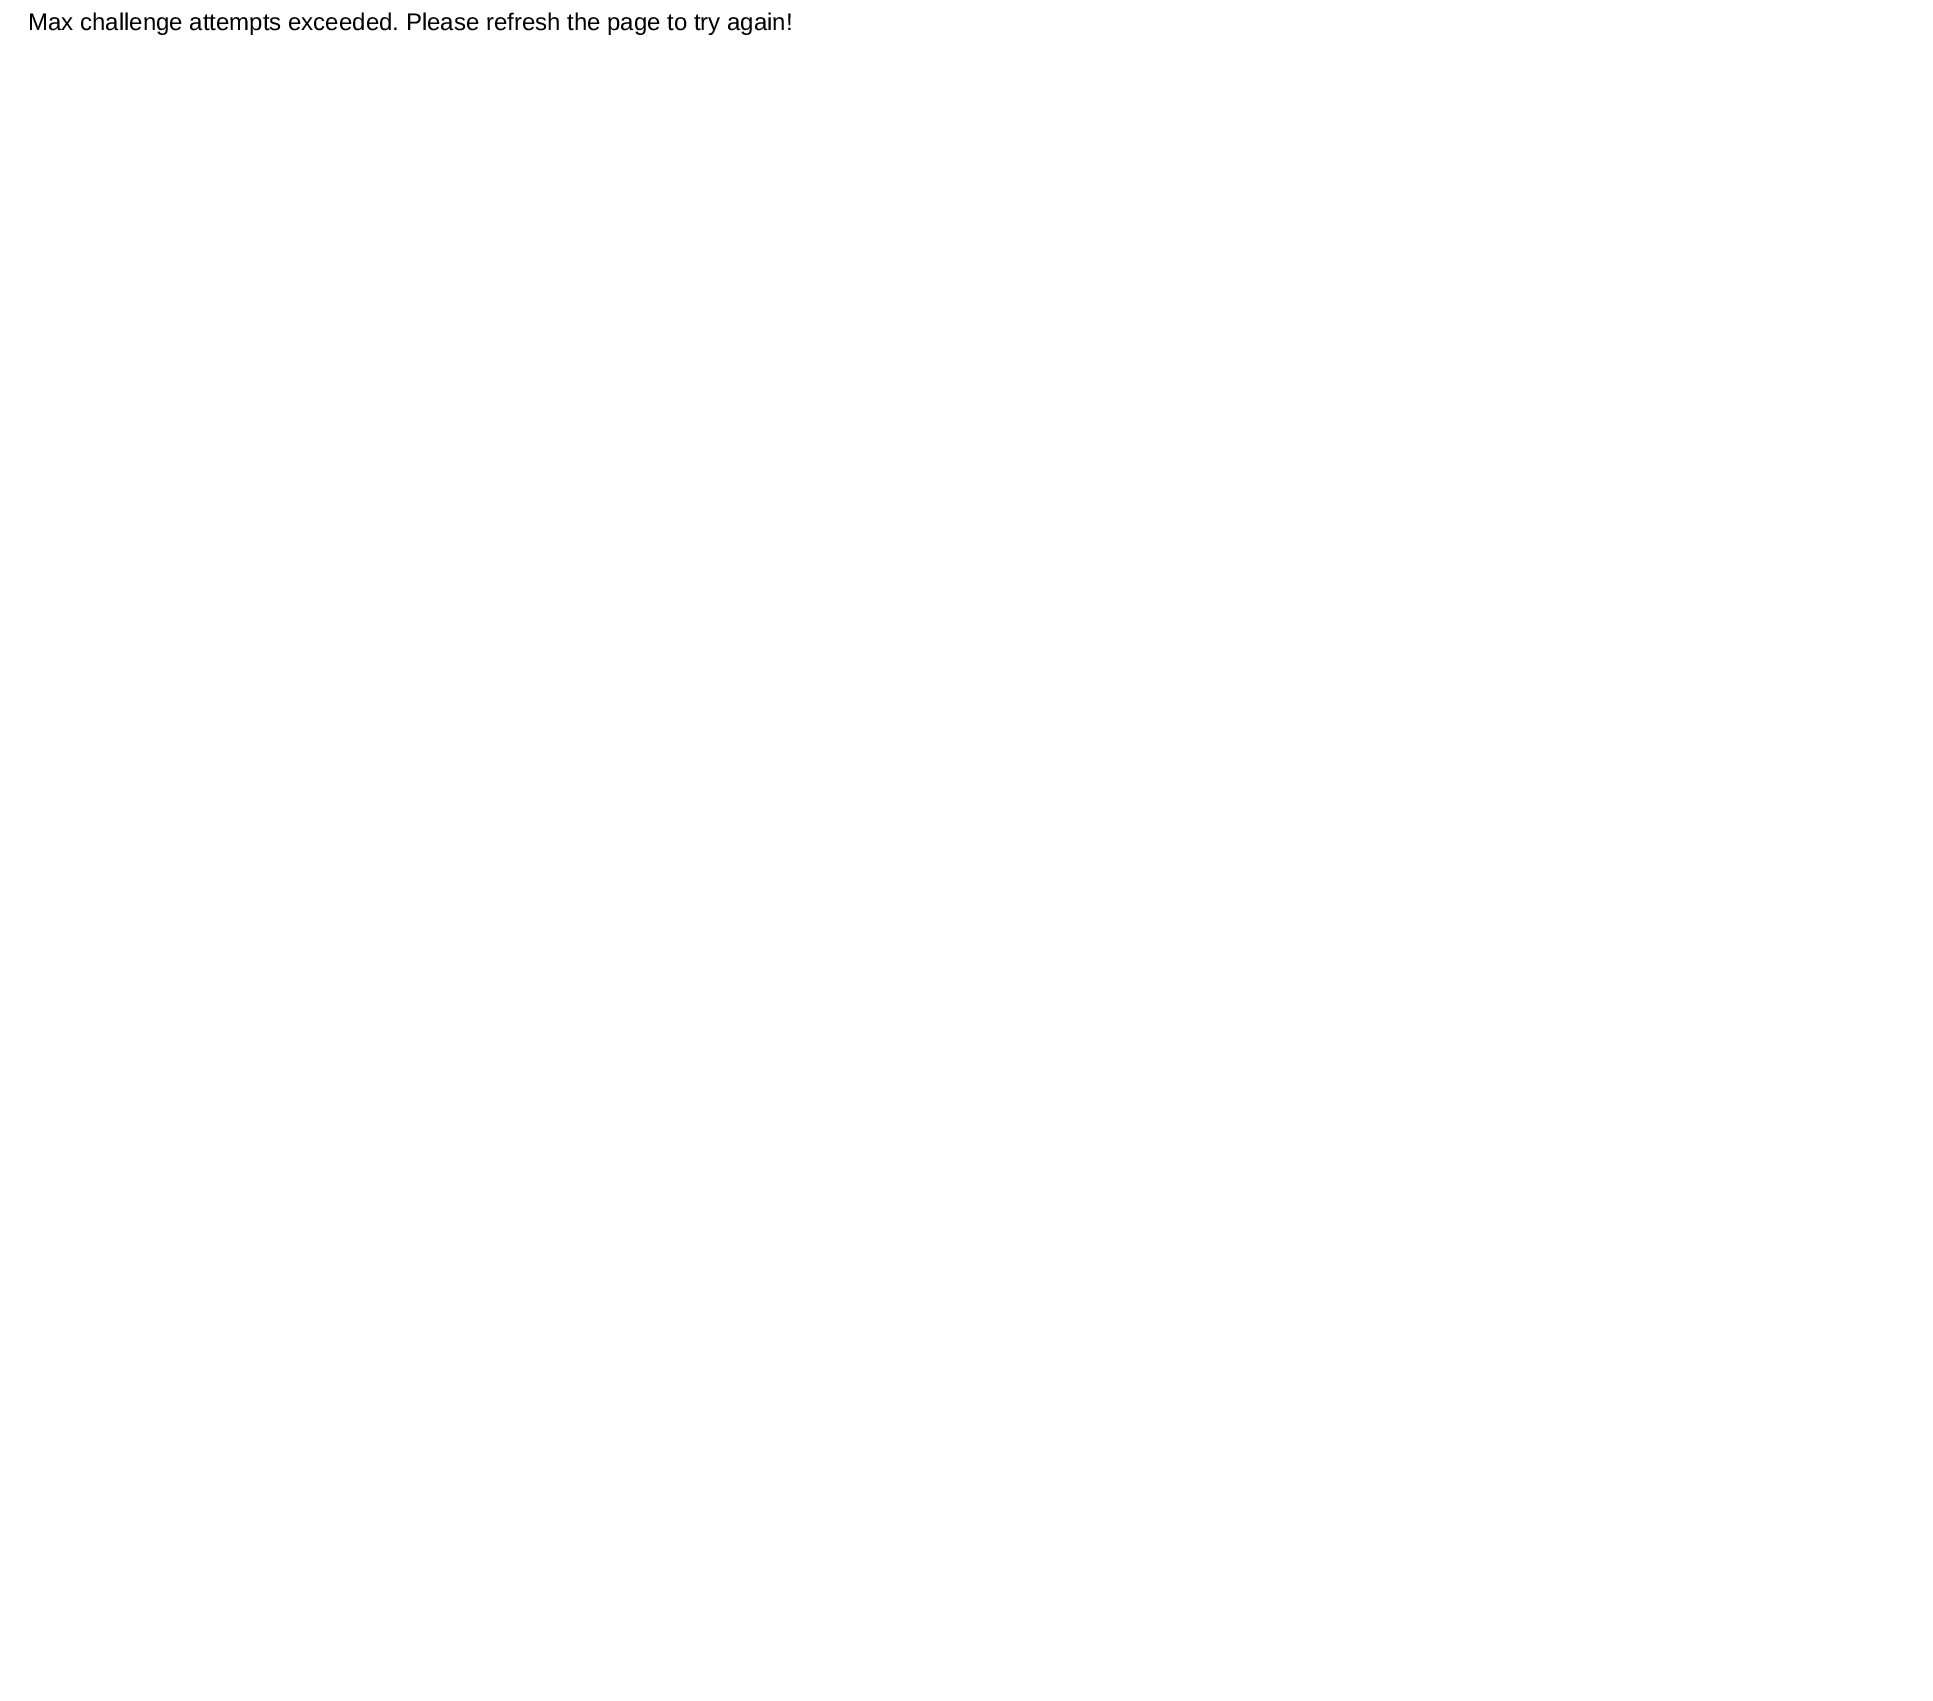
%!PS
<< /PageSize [1933 1701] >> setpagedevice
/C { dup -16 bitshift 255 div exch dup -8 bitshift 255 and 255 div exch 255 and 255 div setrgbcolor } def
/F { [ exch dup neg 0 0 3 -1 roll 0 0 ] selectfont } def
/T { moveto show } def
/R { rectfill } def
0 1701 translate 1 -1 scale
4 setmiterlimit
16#FFFFFF C
0 0 1933 1701 R
/LiberationSans-Regular 24 F
16#000000 C
(Max challenge attempts exceeded. Please refresh the page to try again!) 28 30 T
showpage
